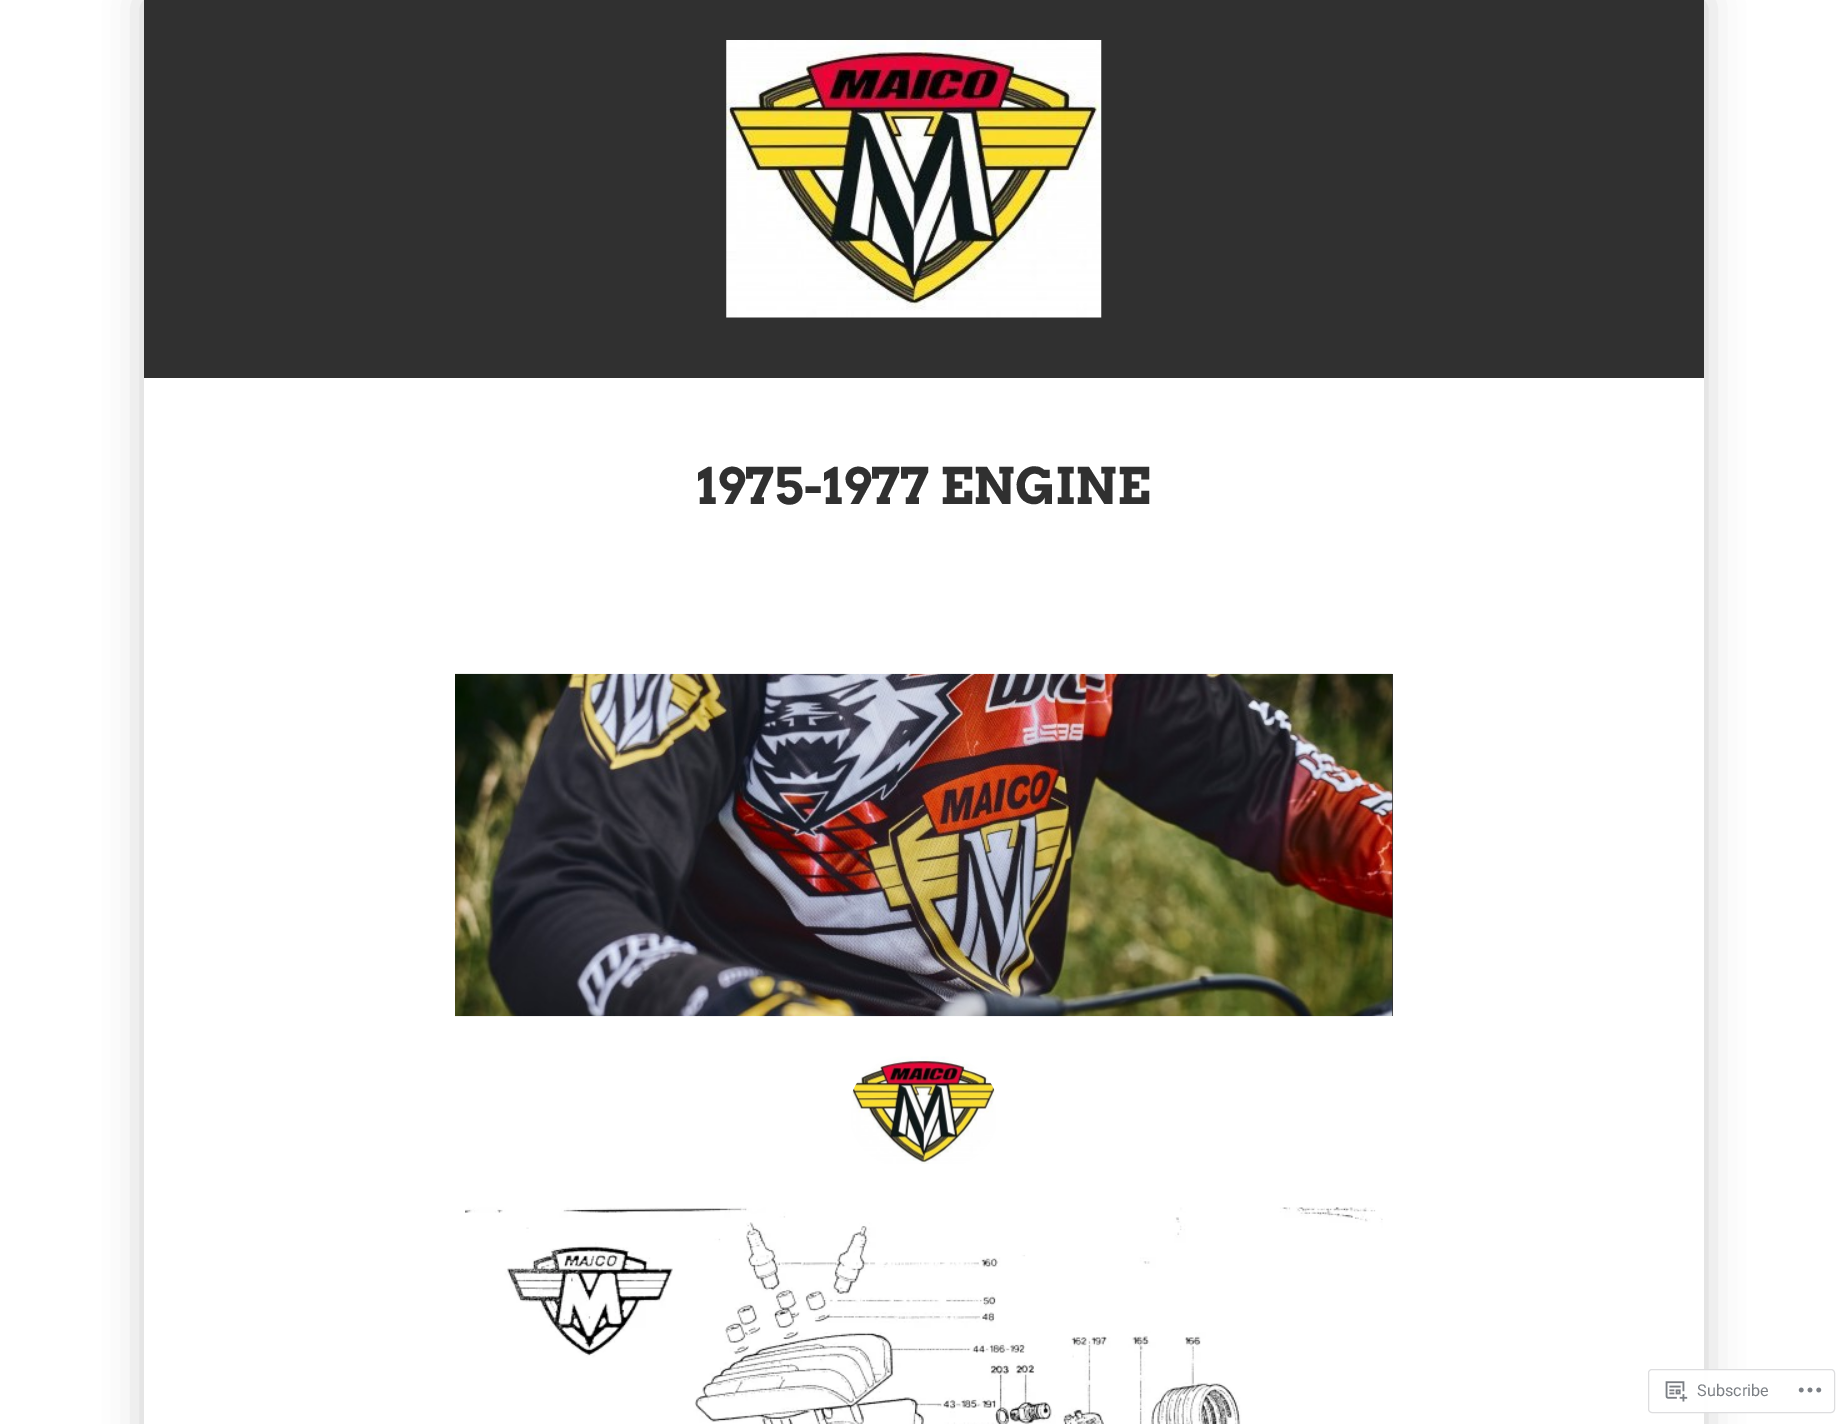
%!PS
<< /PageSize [1847 1424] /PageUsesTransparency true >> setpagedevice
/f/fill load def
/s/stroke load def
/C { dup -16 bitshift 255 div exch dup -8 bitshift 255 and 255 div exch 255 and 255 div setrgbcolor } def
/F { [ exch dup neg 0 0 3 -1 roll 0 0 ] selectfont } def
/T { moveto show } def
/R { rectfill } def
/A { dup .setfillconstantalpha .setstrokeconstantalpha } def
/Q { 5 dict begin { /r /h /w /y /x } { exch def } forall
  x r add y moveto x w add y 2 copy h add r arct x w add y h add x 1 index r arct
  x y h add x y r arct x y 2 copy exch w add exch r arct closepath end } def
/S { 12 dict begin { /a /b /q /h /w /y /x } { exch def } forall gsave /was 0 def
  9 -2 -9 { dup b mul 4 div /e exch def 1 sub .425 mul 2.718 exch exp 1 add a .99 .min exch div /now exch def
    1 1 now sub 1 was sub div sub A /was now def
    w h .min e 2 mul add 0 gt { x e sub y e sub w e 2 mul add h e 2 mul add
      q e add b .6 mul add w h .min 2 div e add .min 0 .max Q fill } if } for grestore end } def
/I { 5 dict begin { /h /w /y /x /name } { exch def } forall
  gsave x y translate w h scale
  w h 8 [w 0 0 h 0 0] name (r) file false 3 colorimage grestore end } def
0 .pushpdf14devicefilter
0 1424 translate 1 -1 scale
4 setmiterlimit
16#FFFFFF C
0 0 1847 1424 R
16#000000 C
144 0 1560 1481 0 19 .2 S
16#FFFFFF C
144 378 1560 1046 R
16#303030 C
144 0 1560 378 R
(1.rgb) 726 40 376 278 I
/Arvo-Bold 50.25 F
(1975-1977 ENGINE) 697 504 T
1392 674 1 342 R
(2.rgb) 455 673 938 344 I
(3.rgb) 851 1056 145 108 I
(4.rgb) 465 1207 918 217 I
0.98 A
16#FFFFFF C
1648.5 1369.5 186 43 3.5 Q f
1 A
16#DDDDDF C
1648.5 1369.5 186 43 3.5 Q s
(5.rgb) 1665 1381 23 21 I
/Roboto-Regular 16.25 F
16#7B7F84 C
(Subscribe) 1697 1396 T
(6.rgb) 1798 1387 24 6 I
.poppdf14devicefilter showpage
